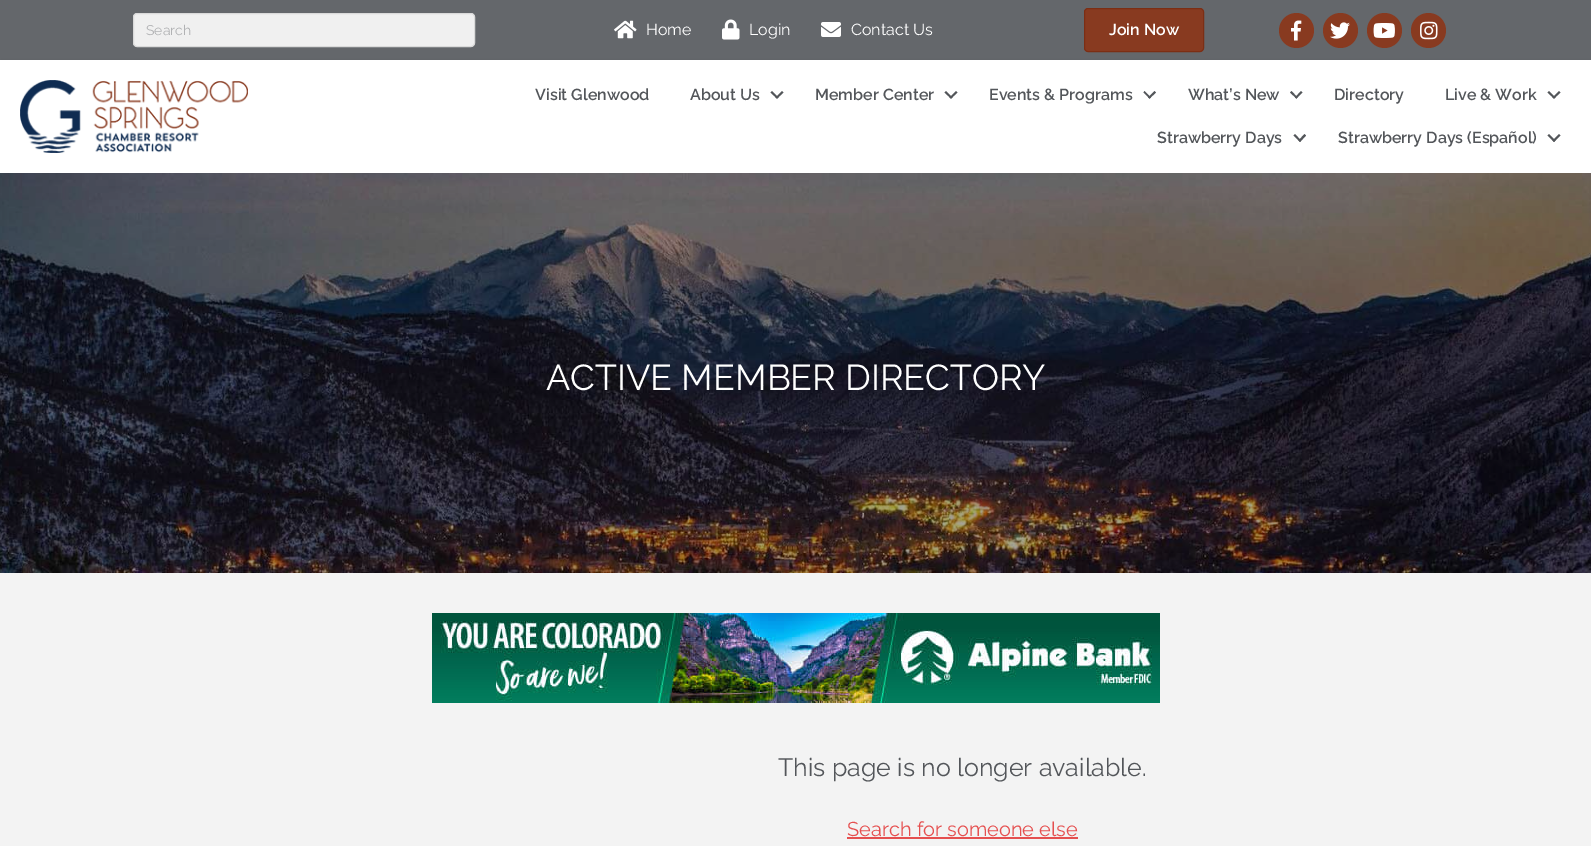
%!PS
<< /PageSize [1591 846] /PageUsesTransparency true >> setpagedevice
/m/moveto load def
/l/rlineto load def
/z/closepath load def
/f/fill load def
/s/stroke load def
/q/gsave load def
/Q_/grestore load def
/C { dup -16 bitshift 255 div exch dup -8 bitshift 255 and 255 div exch 255 and 255 div setrgbcolor } def
/F { [ exch dup neg 0 0 3 -1 roll 0 0 ] selectfont } def
/T { moveto show } def
/R { rectfill } def
/A { dup .setfillconstantalpha .setstrokeconstantalpha } def
/O { newpath 0 360 arc closepath } def
/Q { 5 dict begin { /r /h /w /y /x } { exch def } forall
  x r add y moveto x w add y 2 copy h add r arct x w add y h add x 1 index r arct
  x y h add x y r arct x y 2 copy exch w add exch r arct closepath end } def
/S { 12 dict begin { /a /b /q /h /w /y /x } { exch def } forall gsave /was 0 def
  9 -2 -9 { dup b mul 4 div /e exch def 1 sub .425 mul 2.718 exch exp 1 add a .99 .min exch div /now exch def
    1 1 now sub 1 was sub div sub A /was now def
    w h .min e 2 mul add 0 gt { x e sub y e sub w e 2 mul add h e 2 mul add
      q e add b .6 mul add w h .min 2 div e add .min 0 .max Q fill } if } for grestore end } def
/I { 5 dict begin { /h /w /y /x /name } { exch def } forall
  gsave x y translate w h scale
  w h 8 [w 0 0 h 0 0] name (r) file false 3 colorimage grestore end } def
0 .pushpdf14devicefilter
0 846 translate 1 -1 scale
4 setmiterlimit
16#64676B C
0 0 1591 846 R
16#F0F0F0 C
133.5 13.5 341 33 3.5 Q q f Q_
16#DADADA C
s
/Raleway-Regular 14 F
16#B1B2B4 C
(Search) 146 35 T
(1.rgb) 614 20 23 19 I
/Raleway-Regular 16 F
16#FFFFFF C
(Home) 646 35 T
(2.rgb) 722 19 18 21 I
(Login) 749 35 T
(3.rgb) 821 22 20 15 I
(Contact Us) 851 35 T
16#883A20 C
1084.5 8.5 119 43 3.5 Q q f Q_
16#7C2E14 C
s
/Raleway-SemiBold 16 F
16#FFFFFF C
(Join Now) 1109 35 T
16#883A20 C
1296.5 30.5 17.5 O f
(4.rgb) 1291 20 11 21 I
1340.5 30.5 17.5 O f
(5.rgb) 1330 22 20 17 I
1384.5 30.5 17.5 O f
(6.rgb) 1373 23 22 15 I
1428.5 30.5 17.5 O f
(7.rgb) 1420 21 18 19 I
16#000000 C
2 62 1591 113 0 2.5 .15 S
16#FFFFFF C
0 60 1591 113 R
(8.rgb) 20 80 228 73 I
16#53565A C
(Visit Glenwood) 535 100 T
(About Us) 690 100 T
782 91 m 1.5 1.5 l -6.5 6 l -1.5 -1 l z f
772 91 m 6.5 6.5 l -1.5 1 l -6.5 -6 l z f
(Member Center) 815 100 T
956 91 m 1.5 1.5 l -6.5 6 l -1.5 -1 l z f
946 91 m 6.5 6.5 l -1.5 1 l -6.5 -6 l z f
(Events & Programs) 989 100 T
1154.5 91 m 1.5 1.5 l -6.5 6 l -1.5 -1 l z f
1144.5 91 m 6.5 6.5 l -1.5 1 l -6 -6 l z f
(What’s New) 1188 100 T
1301 91 m 1.5 1.5 l -6 6 l -1.5 -1 l z f
1291.5 91 m 6 6.5 l -1 1 l -6.5 -6 l z f
(Directory) 1334 100 T
(Live & Work) 1445 100 T
1559 91 m 1.5 1.5 l -6.5 6 l -1.5 -1 l z f
1549 91 m 6.5 6.5 l -1.5 1 l -6.5 -6 l z f
(Strawberry Days) 1157 143 T
1304.5 134 m 1.5 1.5 l -6 6.5 l -1.5 -1.5 l z f
1295 134 m 6 6.5 l -1 1.5 l -6.5 -6.5 l z f
(Strawberry Days \(Español\)) 1338 143 T
1559 134 m 1.5 1.5 l -6.5 6.5 l -1.5 -1.5 l z f
1549 134 m 6.5 6.5 l -1.5 1.5 l -6.5 -6.5 l z f
16#F3F3F3 C
0 573 1591 273 R
(9.rgb) 0 173 1591 400 I
/Raleway-Regular 36 F
16#FFFFFF C
(ACTIVE MEMBER DIRECTORY) 546 390 T
(10.rgb) 432 613 728 90 I
/Raleway-Regular 25 F
16#53565A C
(This page is no longer available.) 778 776 T
/Raleway-Regular 20 F
16#E54F4F C
(Search for someone else) 847 836 T
847 837 231 2 R
.poppdf14devicefilter showpage
